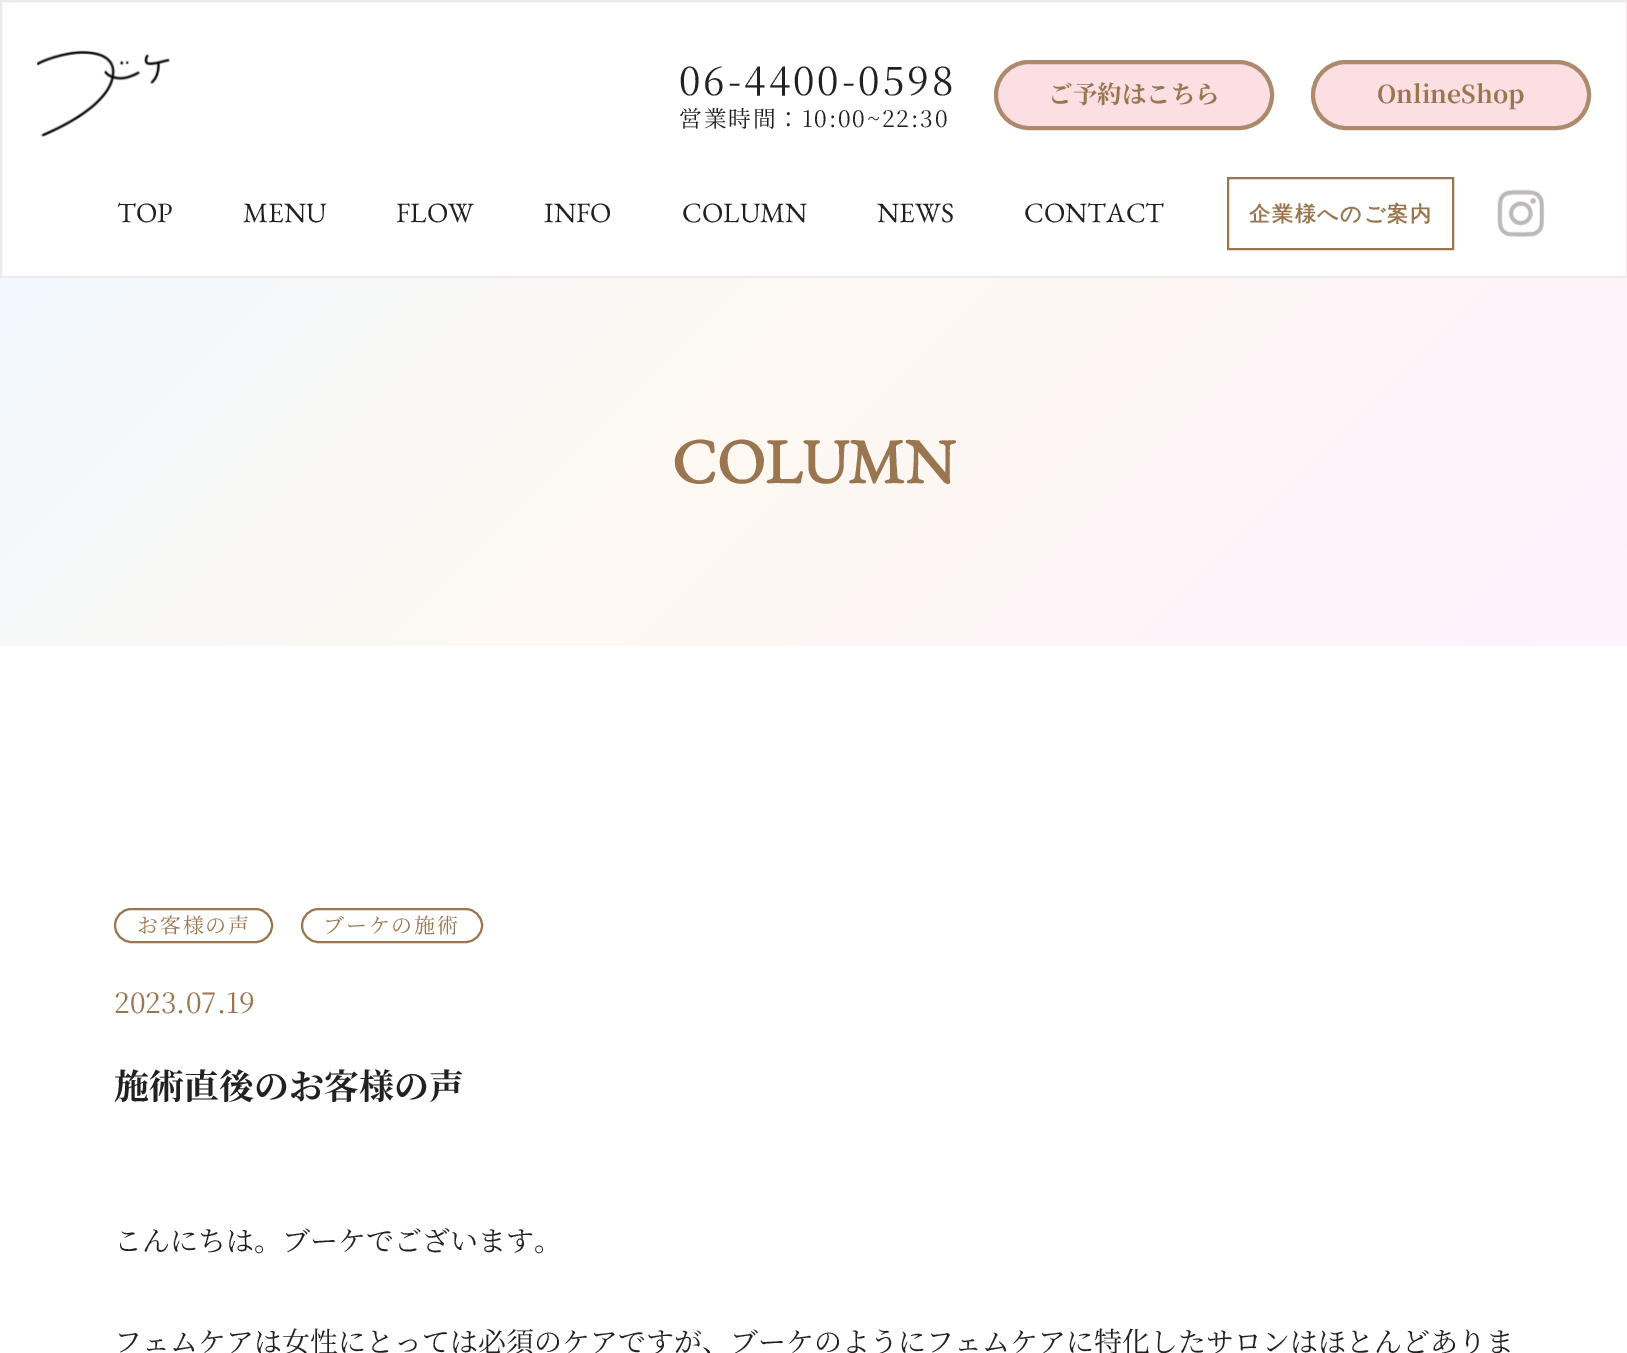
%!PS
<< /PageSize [1627 1353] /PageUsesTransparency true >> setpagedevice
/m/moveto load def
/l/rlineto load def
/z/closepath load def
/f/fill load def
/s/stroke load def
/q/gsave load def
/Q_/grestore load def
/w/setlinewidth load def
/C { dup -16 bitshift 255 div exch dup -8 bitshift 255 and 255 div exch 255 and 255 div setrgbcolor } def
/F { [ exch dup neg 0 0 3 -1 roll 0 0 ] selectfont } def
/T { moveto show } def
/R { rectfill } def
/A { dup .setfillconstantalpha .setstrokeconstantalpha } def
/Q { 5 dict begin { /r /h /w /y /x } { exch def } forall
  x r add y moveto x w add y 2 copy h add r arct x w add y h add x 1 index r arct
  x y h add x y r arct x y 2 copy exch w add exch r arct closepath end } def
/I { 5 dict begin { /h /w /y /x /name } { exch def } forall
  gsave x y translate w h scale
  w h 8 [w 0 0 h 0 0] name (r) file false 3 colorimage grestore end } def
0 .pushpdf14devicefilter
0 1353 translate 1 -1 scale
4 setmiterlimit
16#FFFFFF C
0 0 1627 1353 R
16#EEEAEB C
2 w
1 1 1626 276 rectstroke
(1.rgb) 37 50 133 87 I
/NotoSerifJP-Regular 38.5 F
16#212121 C
679 95 m 3 0 (06-4400-0598) ashow
/NotoSerifJP-Regular 22.75 F
679 127 m 1.8 0 (営業時間：10:00~22:30) ashow
16#FBDFE3 C
994 60 280 70 35 Q f
0.8 A
16#997550 C
4 w
996 62 276 66 33 Q s
/NotoSerifJP-Bold 24.5 F
1 A
(ご予約はこちら) 1048 103 T
16#FBDFE3 C
1311 60 280 70 35 Q f
0.8 A
16#997550 C
1313 62 276 66 33 Q s
1 A
(OnlineShop) 1377 103 T
/EBGaramond-Regular 28 F
16#212121 C
(TOP) 117 222 T
(MENU) 243 222 T
(FLOW) 396 222 T
(INFO) 544 222 T
(COLUMN) 682 222 T
(NEWS) 877 222 T
(CONTACT) 1024 222 T
16#997550 C
2 w
1228 178 225 71 rectstroke
/WenQuanYiZenHei-Bold 21 F
1249 221 m 1.75 0 (企業様へのご案内) ashow
(2.rgb) 1497 189 48 48 I
q 0 278 m 1627 0 l 0 368 l -1627 0 l z clip newpath
<< /ShadingType 2 /ColorSpace /DeviceRGB /Coords [315 -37 1313 961] /Extend [true true] /Function << /FunctionType 3 /Domain [0 1] /Functions [<< /FunctionType 2 /Domain [0 1] /C0 [.949 .973 .996] /C1 [.996 .973 .949] /N 1 >> << /FunctionType 2 /Domain [0 1] /C0 [.996 .973 .949] /C1 [.992 .949 .996] /N 1 >>] /Bounds [.45] /Encode [0 1 0 1] >> >> shfill Q_
/EBGaramond-Bold 63 F
(COLUMN) 672 483 T
115 909 157 33 16.5 Q s
/NotoSerifJP-Regular 21 F
137 933 m 1.75 0 (お客様の声) ashow
302 909 180 33 16.5 Q s
323 933 m 1.75 0 (ブーケの施術) ashow
/NotoSerifJP-Regular 28 F
(2023.07.19) 114 1013 T
/NotoSerifJP-Bold 35 F
16#212121 C
(施術直後のお客様の声) 114 1099 T
/NotoSerifJP-Regular 28 F
(こんにちは。ブーケでございます。) 114 1251 T
(フェムケアは女性にとっては必須のケアですが、ブーケのようにフェムケアに特化したサロンはほとんどありま) 114 1352 T
.poppdf14devicefilter showpage
